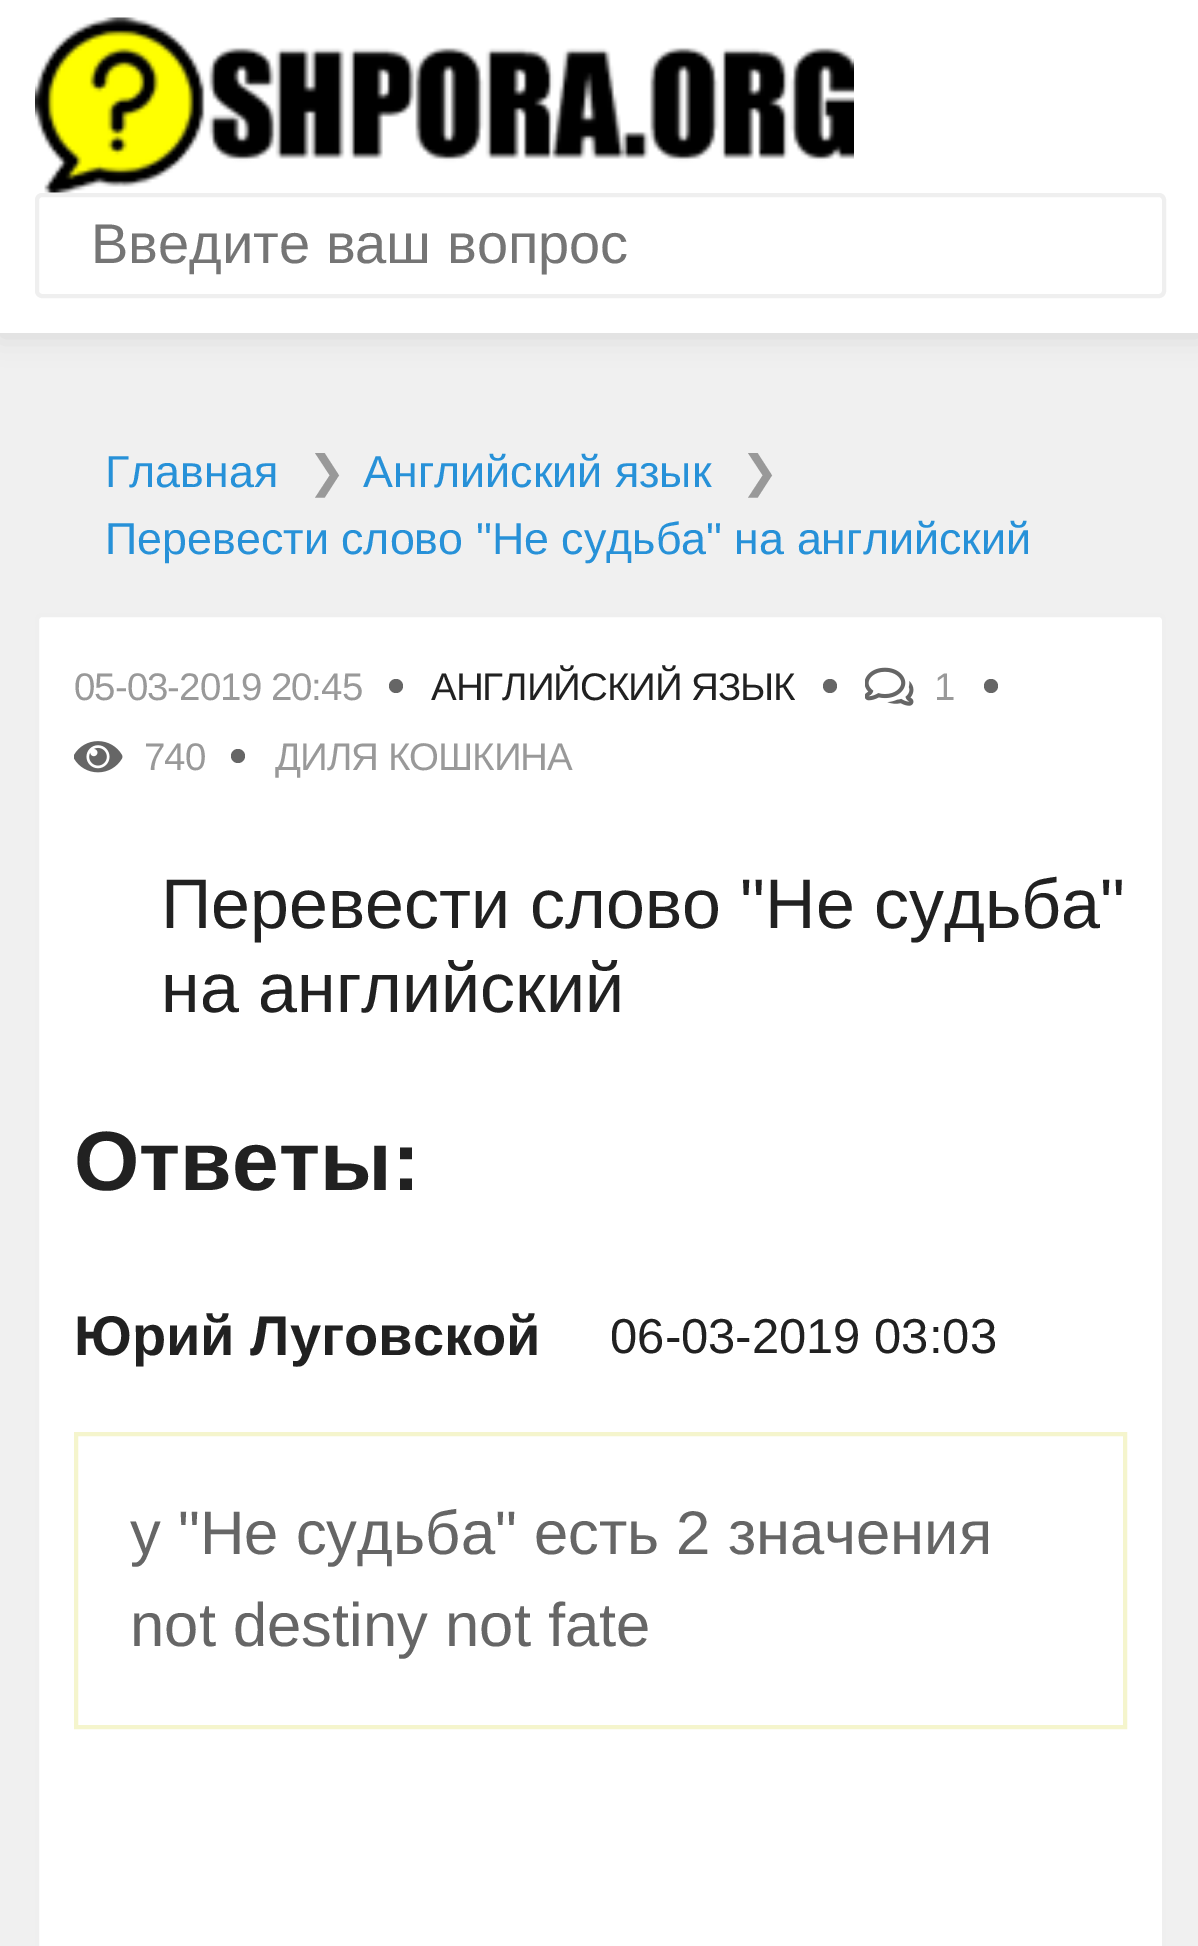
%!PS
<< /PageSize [1198 1946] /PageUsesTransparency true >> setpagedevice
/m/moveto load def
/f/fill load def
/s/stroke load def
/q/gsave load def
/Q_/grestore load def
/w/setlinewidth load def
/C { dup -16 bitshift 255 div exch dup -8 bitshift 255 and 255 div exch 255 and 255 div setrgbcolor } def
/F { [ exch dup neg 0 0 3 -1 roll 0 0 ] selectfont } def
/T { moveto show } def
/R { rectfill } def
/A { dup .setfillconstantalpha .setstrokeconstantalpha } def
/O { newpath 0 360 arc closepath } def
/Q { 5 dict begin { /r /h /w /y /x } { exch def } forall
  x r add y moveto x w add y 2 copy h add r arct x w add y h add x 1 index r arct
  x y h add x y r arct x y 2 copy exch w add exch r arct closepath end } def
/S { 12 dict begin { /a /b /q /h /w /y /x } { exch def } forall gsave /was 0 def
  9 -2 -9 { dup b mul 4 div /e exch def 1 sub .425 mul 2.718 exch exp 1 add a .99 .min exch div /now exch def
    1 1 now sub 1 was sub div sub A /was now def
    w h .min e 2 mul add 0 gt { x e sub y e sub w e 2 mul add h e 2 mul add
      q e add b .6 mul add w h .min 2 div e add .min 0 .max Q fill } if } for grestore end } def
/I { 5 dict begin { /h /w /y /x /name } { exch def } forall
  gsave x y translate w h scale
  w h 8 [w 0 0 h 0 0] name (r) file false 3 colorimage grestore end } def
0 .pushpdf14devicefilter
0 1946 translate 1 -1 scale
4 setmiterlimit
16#F0F0F0 C
0 0 1198 1946 R
16#000000 C
0 4 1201 332 0 14 .1 S
16#FFFFFF C
0 0 1198 333 R
(1.rgb) 35 17 819 176 I
16#EFEFEF C
4 w
37 195 1127 101 5 Q s
/LiberationSans-Regular 56 F
16#757575 C
(Введите ваш вопрос) 91 263 T
/LiberationSans-Regular 44.8 F
16#2791D8 C
(Главная) 105 487 T
/DejaVuSans-Regular 44.8 F
16#999999 C
(❯) 308 487 T
/LiberationSans-Regular 44.8 F
16#2791D8 C
(Английский язык) 363 487 T
/DejaVuSans-Regular 44.8 F
16#999999 C
(❯) 741 487 T
/LiberationSans-Regular 44.8 F
16#2791D8 C
(Перевести слово "Не судьба" на английский) 105 554 T
16#FFFFFF C
37 615 1127 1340 5 Q q f Q_
16#EFEFEF C
s
/LiberationSans-Regular 38.5 F
16#999999 C
74 700 m -1 0 (05-03-2019 20:45) ashow
16#666666 C
396 686 7 O f
16#212121 C
431 700 m -1 0 (АНГЛИЙСКИЙ ЯЗЫК) ashow
16#666666 C
830 686 7 O f
(2.rgb) 865 667 49 39 I
16#999999 C
934 700 m -1 0 (1) ashow
16#666666 C
991 686 7 O f
(3.rgb) 74 741 49 32 I
16#999999 C
144 770 m -1 0 (740) ashow
16#666666 C
238 756 7 O f
16#999999 C
275 770 m -1 0 (ДИЛЯ КОШКИНА) ashow
/LiberationSans-Regular 70 F
16#212121 C
(Перевести слово "Не судьба") 161 928 T
(на английский) 161 1012 T
/LiberationSans-Bold 84 F
(Ответы:) 74 1190 T
/LiberationSans-Bold 56 F
(Юрий Луговской) 74 1355 T
/LiberationSans-Regular 49 F
(06-03-2019 03:03) 610 1353 T
16#F5F5CD C
76 1434 1049 293 rectstroke
/LiberationSans-Regular 61.6 F
16#666666 C
(у "Не судьба" есть 2 значения) 130 1554 T
(not destiny not fate) 130 1646 T
.poppdf14devicefilter showpage
